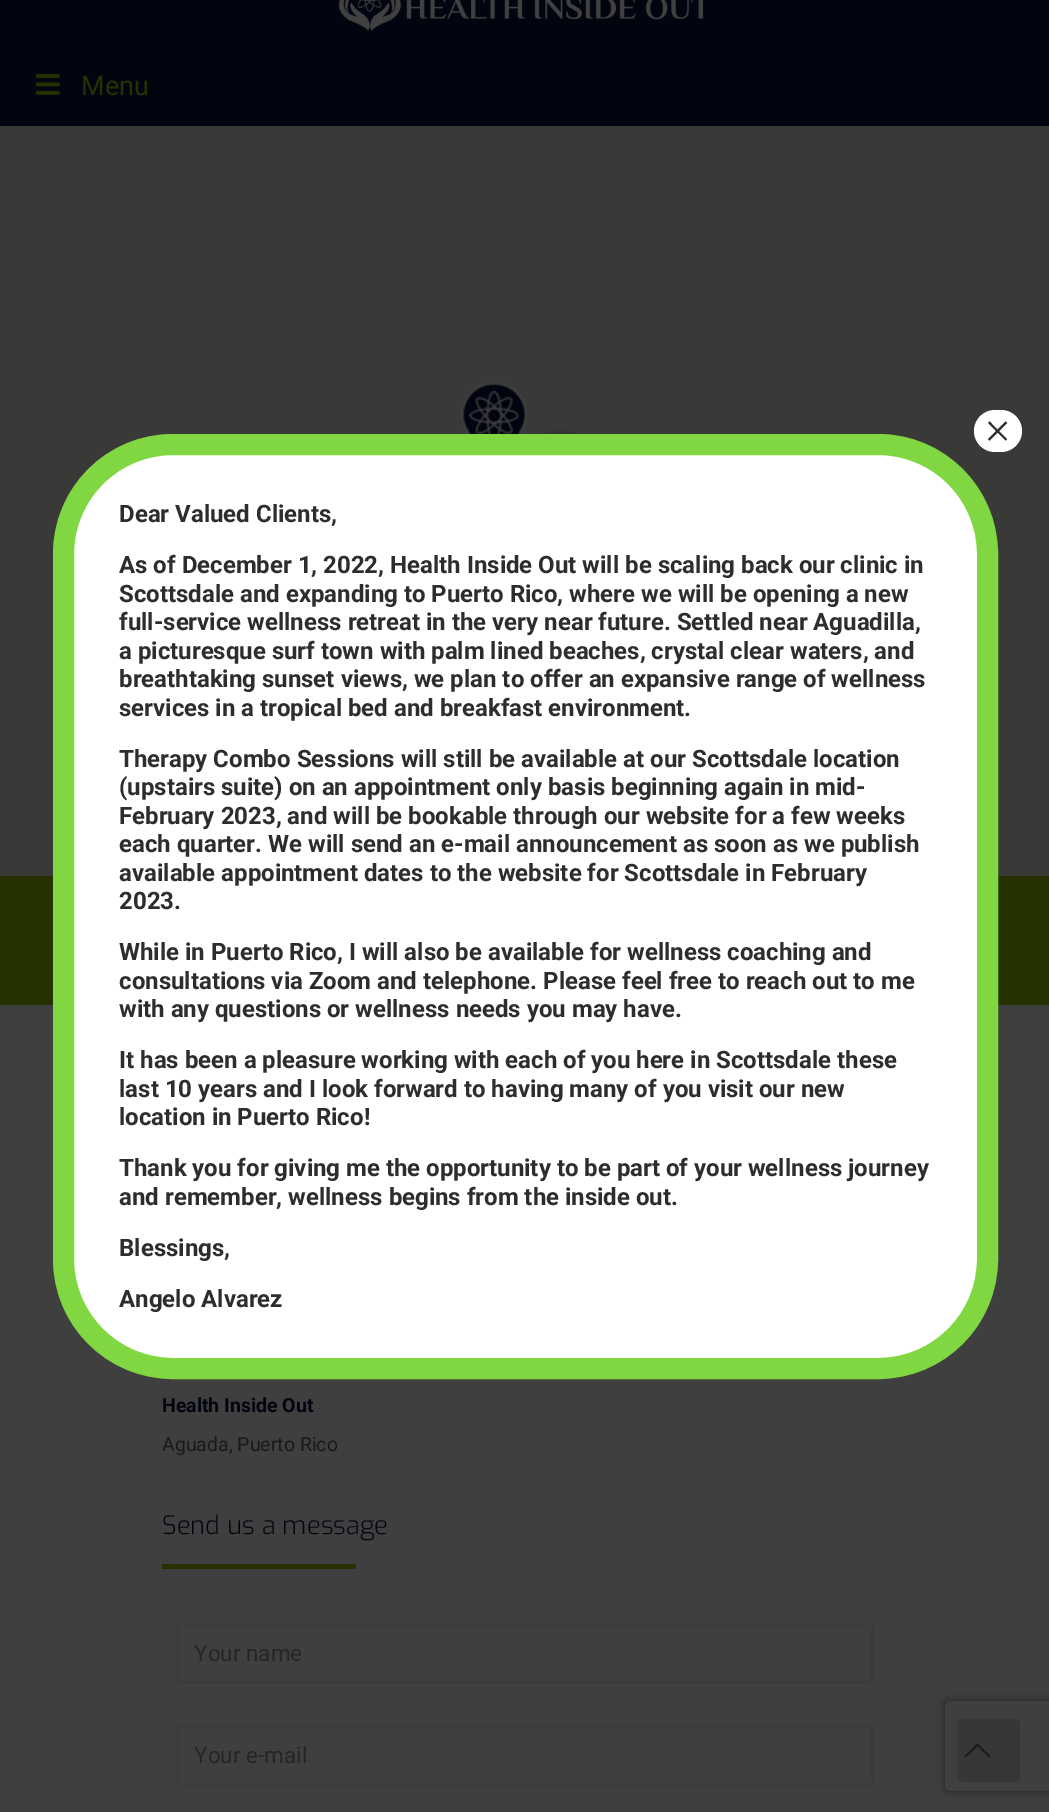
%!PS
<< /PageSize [1049 1812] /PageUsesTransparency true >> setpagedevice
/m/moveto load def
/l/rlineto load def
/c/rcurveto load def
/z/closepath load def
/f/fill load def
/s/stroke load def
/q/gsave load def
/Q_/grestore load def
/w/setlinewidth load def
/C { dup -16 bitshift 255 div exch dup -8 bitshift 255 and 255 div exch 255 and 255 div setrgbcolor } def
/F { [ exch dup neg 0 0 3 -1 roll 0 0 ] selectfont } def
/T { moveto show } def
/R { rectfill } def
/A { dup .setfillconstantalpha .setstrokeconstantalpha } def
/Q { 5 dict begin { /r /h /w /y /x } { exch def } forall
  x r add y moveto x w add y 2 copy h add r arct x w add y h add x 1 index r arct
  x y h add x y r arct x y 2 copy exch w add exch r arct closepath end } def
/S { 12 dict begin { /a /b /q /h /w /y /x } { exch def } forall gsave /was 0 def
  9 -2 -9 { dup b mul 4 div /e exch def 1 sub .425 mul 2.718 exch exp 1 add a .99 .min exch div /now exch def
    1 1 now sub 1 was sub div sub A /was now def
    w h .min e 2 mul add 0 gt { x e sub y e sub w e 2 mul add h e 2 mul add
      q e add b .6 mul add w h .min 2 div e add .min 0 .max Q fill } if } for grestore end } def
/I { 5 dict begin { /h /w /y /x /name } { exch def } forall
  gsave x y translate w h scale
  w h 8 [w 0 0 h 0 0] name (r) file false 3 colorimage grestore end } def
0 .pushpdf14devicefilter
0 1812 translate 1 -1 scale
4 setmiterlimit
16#3F3F3F C
0 0 1049 1812 R
16#020410 C
0 0 1049 126 R
(1.rgb) 338 0 366 31 I
(2.rgb) 36 74 24 21 I
/Roboto-Regular 27 F
16#253200 C
(Menu) 81 95 T
16#393938 C
0 126 1049 750 R
(3.rgb) 460 382 120 52 I
16#253200 C
0 876 1049 129 R
/Roboto-Bold 19.5 F
16#020410 C
(Health Inside Out) 162 1412 T
/Roboto-Regular 19.5 F
16#191919 C
(Aguada, Puerto Rico) 162 1451 T
/Exo-Light 25.5 F
16#020410 C
(Send us a message) 162 1534 T
16#253200 C
162 1564 194 5 R
16#3B3B3B C
2 w
178 1624 694 58 rectstroke
/Roboto-Regular 22.5 F
16#252525 C
(Your name) 194 1661 T
16#3B3B3B C
178 1726 694 58 rectstroke
16#252525 C
(Your e-mail) 194 1763 T
16#FFFFFF C
63.5 444.5 924 924 109.5 Q q f Q_
16#81D742 C
21 w
s
16#FFFFFF C
974 410 48 42 21 Q f
/LiberationSerif-Regular 48 F
16#2D2D2D C
(×) 984 447 T
/Roboto-Bold 24 F
(Dear Valued Clients,) 119 522 T
(As of December 1, 2022, Health Inside Out will be scaling back our clinic in) 119 573 T
(Scottsdale and expanding to Puerto Rico, where we will be opening a new) 119 602 T
(full-service wellness retreat in the very near future. Settled near Aguadilla,) 119 630 T
(a picturesque surf town with palm lined beaches, crystal clear waters, and) 119 659 T
(breathtaking sunset views, we plan to offer an expansive range of wellness) 119 687 T
(services in a tropical bed and breakfast environment.) 119 716 T
(Therapy Combo Sessions will still be available at our Scottsdale location) 119 767 T
(\(upstairs suite\) on an appointment only basis beginning again in mid-) 119 795 T
(February 2023, and will be bookable through our website for a few weeks) 119 824 T
(each quarter. We will send an e-mail announcement as soon as we publish) 119 852 T
(available appointment dates to the website for Scottsdale in February) 119 881 T
(2023.) 119 909 T
(While in Puerto Rico, I will also be available for wellness coaching and) 119 960 T
(consultations via Zoom and telephone. Please feel free to reach out to me) 119 989 T
(with any questions or wellness needs you may have.) 119 1017 T
(It has been a pleasure working with each of you here in Scottsdale these) 119 1068 T
(last 10 years and I look forward to having many of you visit our new) 119 1097 T
(location in Puerto Rico!) 119 1125 T
(Thank you for giving me the opportunity to be part of your wellness journey) 119 1176 T
(and remember, wellness begins from the inside out.) 119 1205 T
(Blessings,) 119 1256 T
(Angelo Alvarez) 119 1307 T
q
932 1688 m 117 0 l 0 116 l -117 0 l z 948 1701 m 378 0 l 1.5 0 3 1.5 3 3 c 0 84 l 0 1.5 -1.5 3 -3 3 c -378 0 l -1.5 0 -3 -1.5 -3 -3 c 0 -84 l 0 -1.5 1.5 -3 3 -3 c z eoclip newpath
16#202020 C
945 1701 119 90 3 4 1 S
Q_
16#373738 C
957 1719 63 63 5 Q f
(4.rgb) 964 1743 27 15 I
.poppdf14devicefilter showpage
